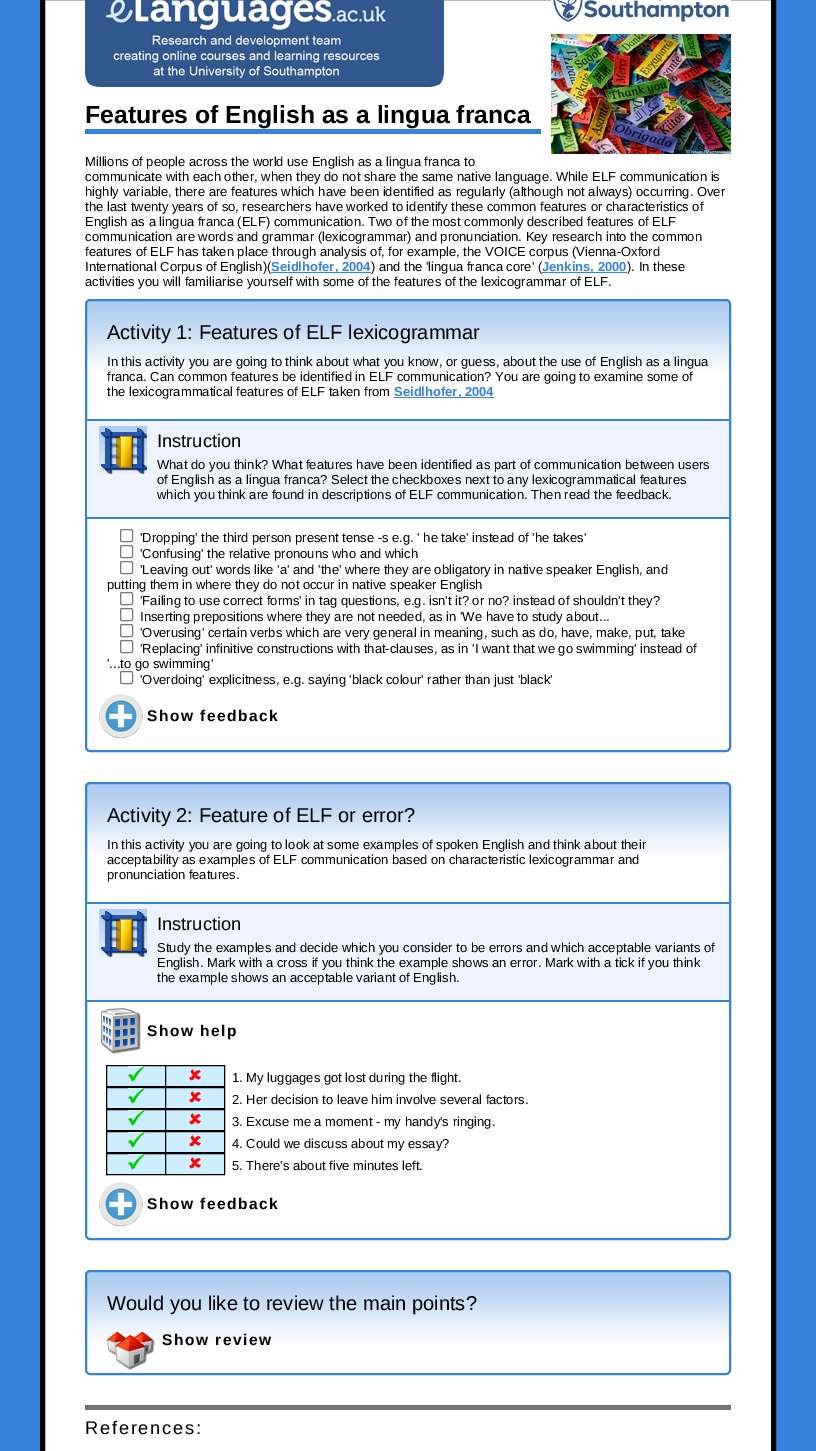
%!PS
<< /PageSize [816 1451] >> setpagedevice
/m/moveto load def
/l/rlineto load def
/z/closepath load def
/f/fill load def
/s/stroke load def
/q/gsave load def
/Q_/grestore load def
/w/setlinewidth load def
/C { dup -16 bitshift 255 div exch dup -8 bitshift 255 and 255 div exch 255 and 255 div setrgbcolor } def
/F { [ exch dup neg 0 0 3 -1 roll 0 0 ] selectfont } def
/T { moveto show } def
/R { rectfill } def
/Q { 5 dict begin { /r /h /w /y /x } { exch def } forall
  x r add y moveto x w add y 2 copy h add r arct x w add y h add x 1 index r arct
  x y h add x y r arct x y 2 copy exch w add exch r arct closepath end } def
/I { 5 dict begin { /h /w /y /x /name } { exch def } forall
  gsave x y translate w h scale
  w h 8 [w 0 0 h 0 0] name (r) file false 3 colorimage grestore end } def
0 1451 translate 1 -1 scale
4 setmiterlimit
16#3482D9 C
0 0 816 1451 R
16#FFFFFF C
42.5 -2.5 m 731 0 l 0 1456 l -731 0 l z q f Q_
16#000000 C
5 w
s
(1.rgb) 85 0 359 87 I
(2.rgb) 551 0 180 154 I
16#3482D9 C
85 129 456 5 R
/LiberationSans-Bold 24.75 F
16#000000 C
(Features of English as a lingua franca) 85 123 T
/LiberationSans-Regular 13 F
(Millions of people across the world use English as a lingua franca to) 85 166 T
(communicate with each other, when they do not share the same native language. While ELF communication is) 85 181 T
(highly variable, there are features which have been identified as regularly \(although not always\) occurring. Over) 85 196 T
(the last twenty years of so, researchers have worked to identify these common features or characteristics of) 85 211 T
(English as a lingua franca \(ELF\) communication. Two of the most commonly described features of ELF) 85 226 T
(communication are words and grammar \(lexicogrammar\) and pronunciation. Key research into the common) 85 241 T
(features of ELF has taken place through analysis of, for example, the VOICE corpus \(Vienna-Oxford) 85 256 T
(International Corpus of English\)\() 85 271 T
16#3482D9 C
271 272 100 1 R
/LiberationSans-Bold 13 F
(Seidlhofer, 2004) 271 271 T
/LiberationSans-Regular 13 F
16#000000 C
(\) and the 'lingua franca core' \() 371 271 T
16#3482D9 C
542 272 85 1 R
/LiberationSans-Bold 13 F
(Jenkins, 2000) 542 271 T
/LiberationSans-Regular 13 F
16#000000 C
(\). In these) 627 271 T
(activities you will familiarise yourself with some of the features of the lexicogrammar of ELF.) 85 286 T
(3.rgb) 85 301 646 71 I
16#3482D9 C
2 w
86 300 644 451 4 Q s
/LiberationSans-Regular 20.1 F
16#000000 C
(Activity 1: Features of ELF lexicogrammar) 107 339 T
/LiberationSans-Regular 13 F
(In this activity you are going to think about what you know, or guess, about the use of English as a lingua) 107 366 T
(franca. Can common features be identified in ELF communication? You are going to examine some of) 107 381 T
(the lexicogrammatical features of ELF taken from) 107 396 T
16#3482D9 C
394 397 100 1 R
/LiberationSans-Bold 13 F
(Seidlhofer, 2004) 394 396 T
16#EEF4FF C
87 421 642 96 R
16#3482D9 C
87 419 642 2 R
87 517 642 2 R
(4.rgb) 99 426 48 48 I
/LiberationSans-Regular 18.25 F
16#000000 C
(Instruction) 157 447 T
/LiberationSans-Regular 13 F
(What do you think? What features have been identified as part of communication between users) 157 469 T
(of English as a lingua franca? Select the checkboxes next to any lexicogrammatical features) 157 484 T
(which you think are found in descriptions of ELF communication. Then read the feedback.) 157 499 T
16#767676 C
1 w
120.5 529.5 12 12 1.5 Q s
16#000000 C
('Dropping' the third person present tense -s e.g. ' he take' instead of 'he takes') 140 542 T
16#767676 C
120.5 545.5 12 12 1.5 Q s
16#000000 C
('Confusing' the relative pronouns who and which) 140 558 T
16#767676 C
120.5 561.5 12 12 1.5 Q s
16#000000 C
('Leaving out' words like 'a' and 'the' where they are obligatory in native speaker English, and) 140 574 T
(putting them in where they do not occur in native speaker English) 107 589 T
16#767676 C
120.5 592.5 12 12 1.5 Q s
16#000000 C
('Failing to use correct forms' in tag questions, e.g. isn't it? or no? instead of shouldn't they?) 140 605 T
16#767676 C
120.5 608.5 12 12 1.5 Q s
16#000000 C
(Inserting prepositions where they are not needed, as in 'We have to study about...) 140 621 T
16#767676 C
120.5 624.5 12 12 1.5 Q s
16#000000 C
('Overusing' certain verbs which are very general in meaning, such as do, have, make, put, take) 140 637 T
16#767676 C
120.5 640.5 12 12 1.5 Q s
16#000000 C
('Replacing' infinitive constructions with that-clauses, as in 'I want that we go swimming' instead of) 140 653 T
('...to go swimming') 107 668 T
16#767676 C
120.5 671.5 12 12 1.5 Q s
16#000000 C
('Overdoing' explicitness, e.g. saying 'black colour' rather than just 'black') 140 684 T
(5.rgb) 99 694 44 45 I
/LiberationSans-Bold 15.5 F
147 721 m 1.5 0 (Show feedback) ashow
(3.rgb) 85 784 646 71 I
16#3482D9 C
2 w
86 783 644 456 4 Q s
/LiberationSans-Regular 20.1 F
16#000000 C
(Activity 2: Feature of ELF or error?) 107 822 T
/LiberationSans-Regular 13 F
(In this activity you are going to look at some examples of spoken English and think about their) 107 849 T
(acceptability as examples of ELF communication based on characteristic lexicogrammar and) 107 864 T
(pronunciation features.) 107 879 T
16#EEF4FF C
87 904 642 96 R
16#3482D9 C
87 902 642 2 R
87 1000 642 2 R
(4.rgb) 99 909 48 48 I
/LiberationSans-Regular 18.25 F
16#000000 C
(Instruction) 157 930 T
/LiberationSans-Regular 13 F
(Study the examples and decide which you consider to be errors and which acceptable variants of) 157 952 T
(English. Mark with a cross if you think the example shows an error. Mark with a tick if you think) 157 967 T
(the example shows an acceptable variant of English.) 157 982 T
(6.rgb) 101 1008 40 46 I
/LiberationSans-Bold 15.5 F
147 1036 m 1.5 0 (Show help) ashow
16#CCEEFF C
106.5 1065.5 m 59 0 l 0 21 l -59 0 l z q f Q_
16#000000 C
1 w
s
(7.rgb) 128 1066 17 16 I
16#CCEEFF C
165.5 1065.5 m 59 0 l 0 21 l -59 0 l z q f Q_
16#000000 C
s
(8.rgb) 189 1069 12 12 I
/LiberationSans-Regular 13 F
(1. My luggages got lost during the flight.) 232 1082 T
16#CCEEFF C
106.5 1087.5 m 59 0 l 0 21 l -59 0 l z q f Q_
16#000000 C
s
(7.rgb) 128 1088 17 16 I
16#CCEEFF C
165.5 1087.5 m 59 0 l 0 21 l -59 0 l z q f Q_
16#000000 C
s
(8.rgb) 189 1091 12 12 I
(2. Her decision to leave him involve several factors.) 232 1104 T
16#CCEEFF C
106.5 1109.5 m 59 0 l 0 21 l -59 0 l z q f Q_
16#000000 C
s
(7.rgb) 128 1110 17 16 I
16#CCEEFF C
165.5 1109.5 m 59 0 l 0 21 l -59 0 l z q f Q_
16#000000 C
s
(8.rgb) 189 1113 12 12 I
(3. Excuse me a moment - my handy's ringing.) 232 1126 T
16#CCEEFF C
106.5 1131.5 m 59 0 l 0 21 l -59 0 l z q f Q_
16#000000 C
s
(7.rgb) 128 1132 17 16 I
16#CCEEFF C
165.5 1131.5 m 59 0 l 0 21 l -59 0 l z q f Q_
16#000000 C
s
(8.rgb) 189 1135 12 12 I
(4. Could we discuss about my essay?) 232 1148 T
16#CCEEFF C
106.5 1153.5 m 59 0 l 0 21 l -59 0 l z q f Q_
16#000000 C
s
(7.rgb) 128 1154 17 16 I
16#CCEEFF C
165.5 1153.5 m 59 0 l 0 21 l -59 0 l z q f Q_
16#000000 C
s
(8.rgb) 189 1157 12 12 I
(5. There's about five minutes left.) 232 1170 T
(5.rgb) 99 1182 44 45 I
/LiberationSans-Bold 15.5 F
147 1209 m 1.5 0 (Show feedback) ashow
(3.rgb) 85 1272 646 71 I
16#3482D9 C
2 w
86 1271 644 103 4 Q s
/LiberationSans-Regular 20.1 F
16#000000 C
(Would you like to review the main points?) 107 1310 T
(9.rgb) 107 1331 48 39 I
/LiberationSans-Bold 15.5 F
162 1345 m 1.5 0 (Show review) ashow
16#737373 C
85 1405 646 5 R
/LiberationSans-Regular 18.25 F
16#000000 C
85 1434 m 1.75 0 (References:) ashow
showpage
